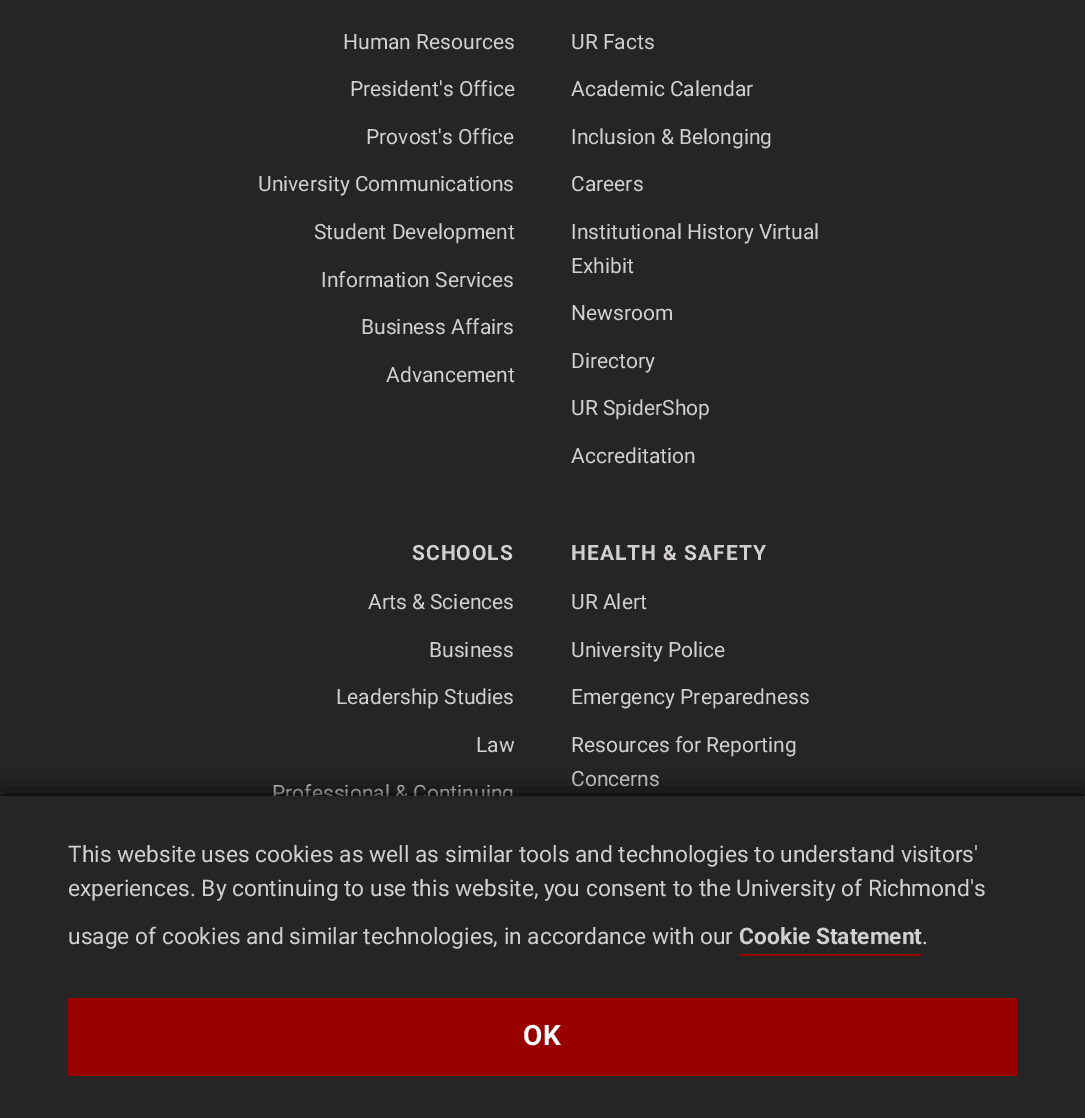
%!PS
<< /PageSize [1085 1118] /PageUsesTransparency true >> setpagedevice
/m/moveto load def
/C { dup -16 bitshift 255 div exch dup -8 bitshift 255 and 255 div exch 255 and 255 div setrgbcolor } def
/F { [ exch dup neg 0 0 3 -1 roll 0 0 ] selectfont } def
/T { moveto show } def
/R { rectfill } def
/A { dup .setfillconstantalpha .setstrokeconstantalpha } def
/Q { 5 dict begin { /r /h /w /y /x } { exch def } forall
  x r add y moveto x w add y 2 copy h add r arct x w add y h add x 1 index r arct
  x y h add x y r arct x y 2 copy exch w add exch r arct closepath end } def
/S { 12 dict begin { /a /b /q /h /w /y /x } { exch def } forall gsave /was 0 def
  9 -2 -9 { dup b mul 4 div /e exch def 1 sub .425 mul 2.718 exch exp 1 add a .99 .min exch div /now exch def
    1 1 now sub 1 was sub div sub A /was now def
    w h .min e 2 mul add 0 gt { x e sub y e sub w e 2 mul add h e 2 mul add
      q e add b .6 mul add w h .min 2 div e add .min 0 .max Q fill } if } for grestore end } def
0 .pushpdf14devicefilter
0 1118 translate 1 -1 scale
4 setmiterlimit
16#262525 C
0 0 1085 1118 R
/Roboto-Regular 21 F
16#D2D0CF C
(Human Resources) 343 49 T
(President's Office) 350 96 T
(Provost's Office) 366 144 T
(University Communications) 258 191 T
(Student Development) 314 239 T
(Information Services) 321 287 T
(Business Affairs) 361 334 T
(Advancement) 386 382 T
(UR Facts) 571 49 T
(Academic Calendar) 571 96 T
(Inclusion & Belonging) 571 144 T
(Careers) 571 191 T
(Institutional History Virtual) 571 239 T
(Exhibit) 571 273 T
(Newsroom) 571 320 T
(Directory) 571 368 T
(UR SpiderShop) 571 415 T
(Accreditation) 571 463 T
/Roboto-Bold 21 F
412 560 m 1 0 (SCHOOLS) ashow
/Roboto-Regular 21 F
(Arts & Sciences) 368 609 T
(Business) 429 657 T
(Leadership Studies) 336 704 T
(Law) 476 752 T
(Professional & Continuing) 272 800 T
/Roboto-Bold 21 F
571 560 m 1 0 (HEALTH & SAFETY) ashow
/Roboto-Regular 21 F
(UR Alert) 571 609 T
(University Police) 571 657 T
(Emergency Preparedness) 571 704 T
(Resources for Reporting) 571 752 T
(Concerns) 571 786 T
16#000000 C
0 796 1085 322 0 13 1 S
16#262525 C
0 796 1085 322 R
/Roboto-Regular 22.75 F
16#D2D0CF C
(This website uses cookies as well as similar tools and technologies to understand visitors') 68 862 T
(experiences. By continuing to use this website, you consent to the University of Richmond's) 68 896 T
(usage of cookies and similar technologies, in accordance with our) 68 944 T
16#990000 C
739 954 183 2 R
/Roboto-Bold 22.75 F
16#D2D0CF C
(Cookie Statement) 739 944 T
/Roboto-Regular 22.75 F
(.) 922 944 T
16#990000 C
68 998 949 78 R
/Roboto-Bold 28 F
16#FFFFFF C
523 1045 m 1 0 (OK) ashow
.poppdf14devicefilter showpage
